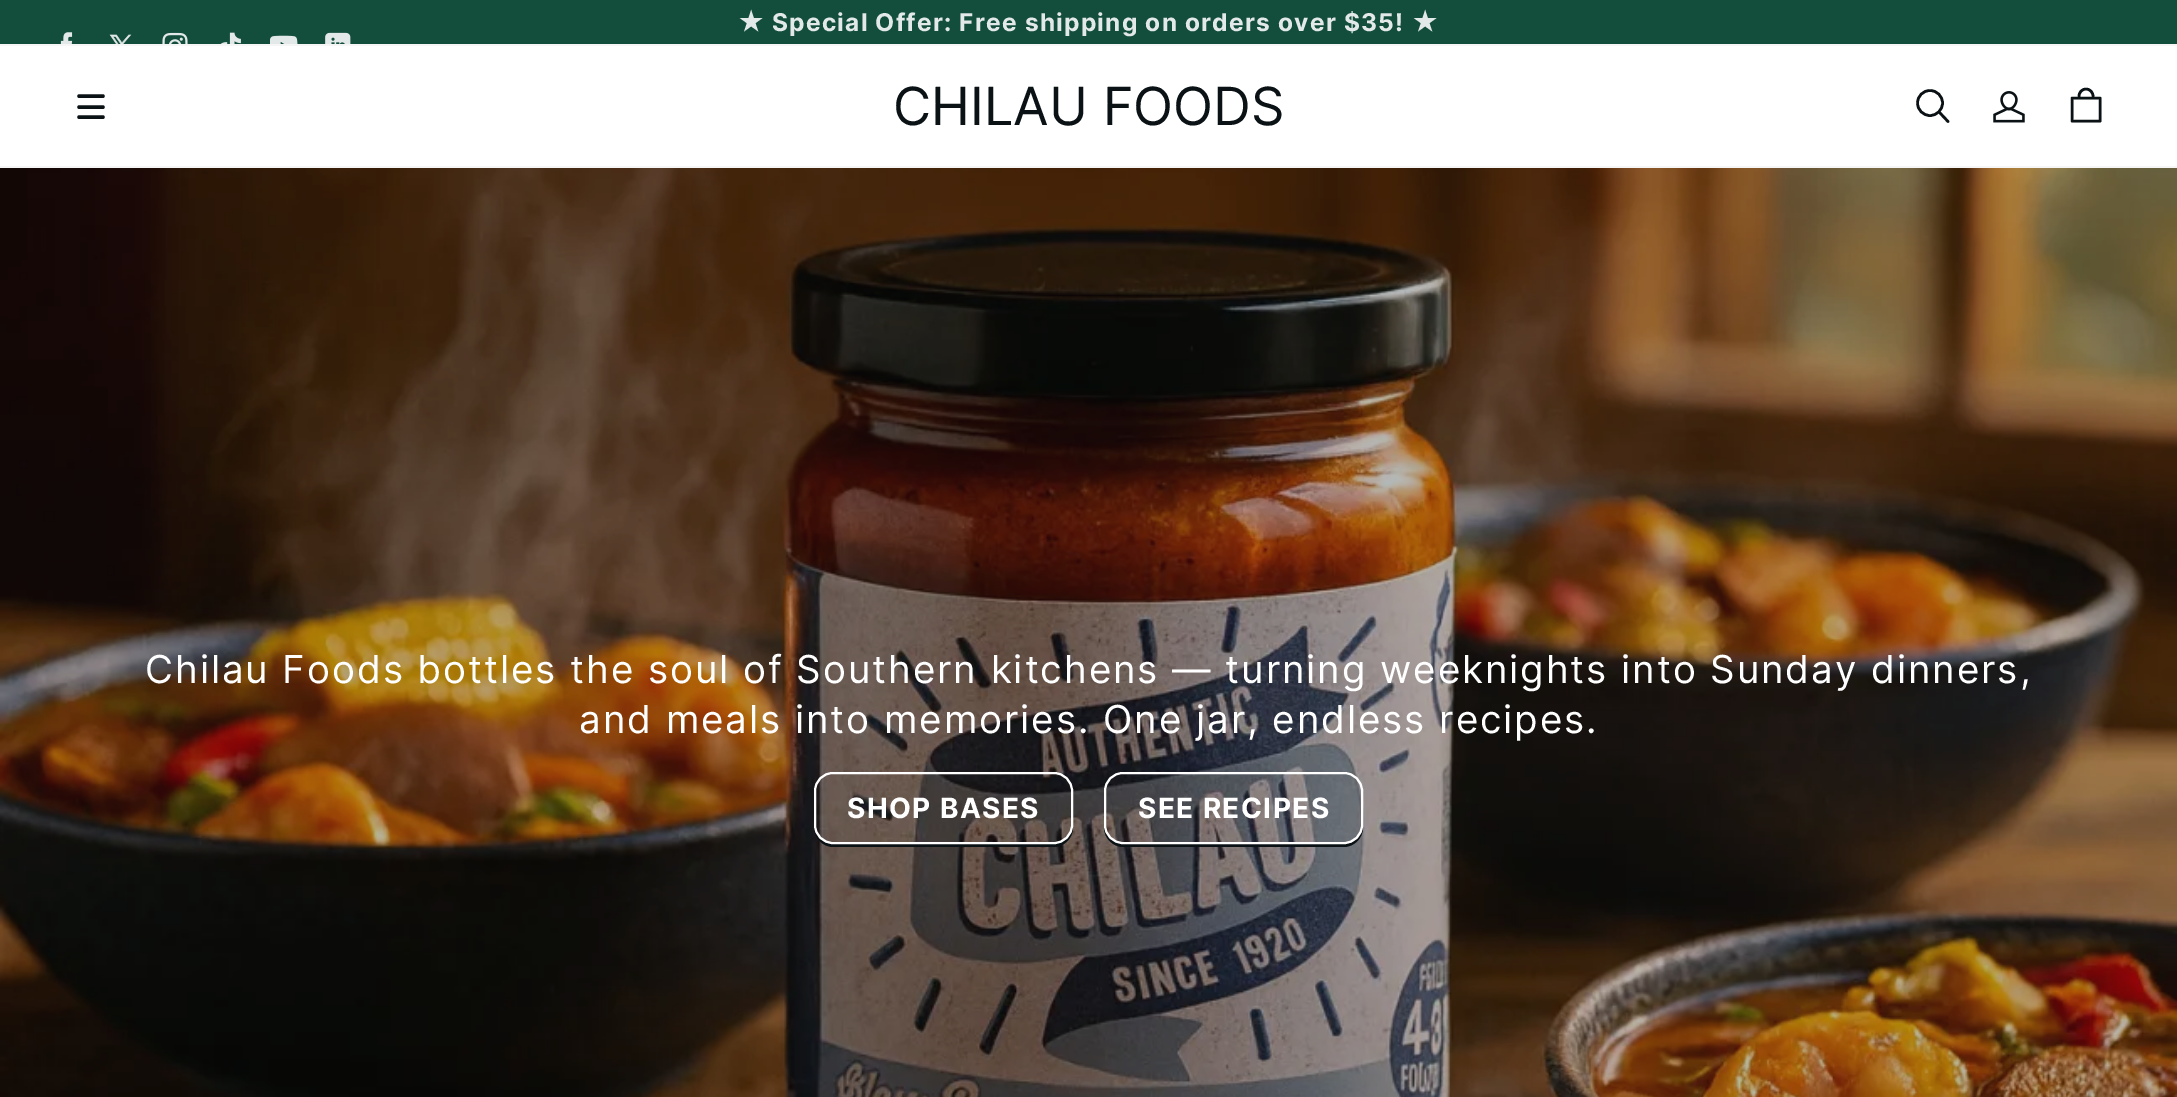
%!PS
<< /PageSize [2177 1097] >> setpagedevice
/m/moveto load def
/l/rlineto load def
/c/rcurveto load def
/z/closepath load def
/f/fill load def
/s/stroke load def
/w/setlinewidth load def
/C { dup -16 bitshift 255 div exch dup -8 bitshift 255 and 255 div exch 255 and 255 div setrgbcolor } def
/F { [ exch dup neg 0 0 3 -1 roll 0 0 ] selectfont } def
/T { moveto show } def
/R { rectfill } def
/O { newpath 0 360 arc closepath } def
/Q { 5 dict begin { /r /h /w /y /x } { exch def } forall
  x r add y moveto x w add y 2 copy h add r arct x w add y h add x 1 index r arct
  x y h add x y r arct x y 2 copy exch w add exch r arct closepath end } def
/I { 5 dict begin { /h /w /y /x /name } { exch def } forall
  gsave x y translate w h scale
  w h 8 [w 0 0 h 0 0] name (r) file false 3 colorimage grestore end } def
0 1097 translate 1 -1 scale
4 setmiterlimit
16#FFFFFF C
0 0 2177 1097 R
16#124E3B C
0 0 2177 44 R
(1.rgb) 60 32 13 12 I
(2.rgb) 109 34 23 10 I
(3.rgb) 162 32 26 12 I
(4.rgb) 220 32 21 12 I
(5.rgb) 270 35 28 9 I
(6.rgb) 325 32 26 12 I
/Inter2-Bold 24.5 F
16#E3E8E9 C
738 31 m 1.2 0 (★) ashow
/Inter-Bold 24.5 F
772 31 m 1.2 0 (Special Offer: Free shipping on orders over $35!) ashow
/Inter2-Bold 24.5 F
1412 31 m 1.2 0 (★) ashow
16#F6F6F6 C
0 44 2177 2 R
0 166 2177 2 R
16#0B1215 C
3.5 w
1 setlinecap
79 96 m 24 0 l 79 107 m 24 0 l 79 117 m 24 0 l s
/Inter-Regular 52.5 F
(CHILAU FOODS) 893 125 T
2.6 w
0 setlinecap
1930 103 12.5 O s
1 setlinecap
1940 113 m 8 8.5 l s
(7.rgb) 1993 91 32 32 I
1 setlinejoin
2072 121 m 0 -23 l 28 0 l 0 23 l z 2079 98 m 0 -2 l 0 -3.5 3 -7 7 -7 c 4 0 7 3.5 7 7 c 0 2 l s
(8.rgb) 0 168 2177 929 I
/Inter-Regular 38.5 F
16#FFFFFF C
145 683 m 1.93 0 (Chilau Foods bottles the soul of Southern kitchens — turning weeknights into Sunday dinners,) ashow
579 733 m 1.93 0 (and meals into memories. One jar, endless recipes.) ashow
16#0B1215 C
814 827 m 0 1 l 0 10 9 19 19 19 c 221 0 l 10 0 19 -9 19 -19 c 0 -37 l 0 33 l 0 11 -9 20 -19 20 c -221 0 l -10 0 -18 -7 -19 -17 c z f
16#FFFFFF C
2 w
0 setlinecap
0 setlinejoin
815 773 257 70 18 Q s
/Inter-Bold 28 F
847 818 m 1.4 0 (SHOP BASES) ashow
16#0B1215 C
1104 791 m 0 37 l 0 10 9 19 19 19 c 221 0 l 10 0 19 -9 19 -19 c 0 -1 l -1 10 -9 17 -19 17 c -220 0 l -11 0 -20 -9 -20 -20 c z f
16#FFFFFF C
1105 773 257 70 18 Q s
1138 818 m 1.4 0 (SEE RECIPES) ashow
showpage
